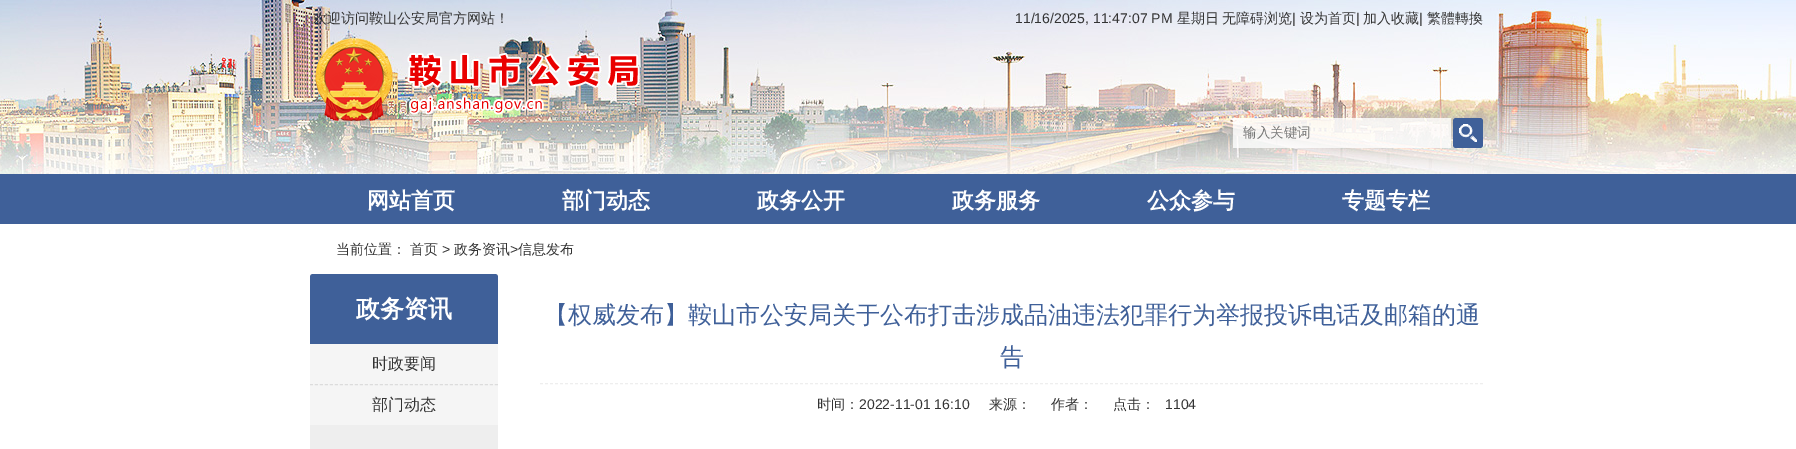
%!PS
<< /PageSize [1796 449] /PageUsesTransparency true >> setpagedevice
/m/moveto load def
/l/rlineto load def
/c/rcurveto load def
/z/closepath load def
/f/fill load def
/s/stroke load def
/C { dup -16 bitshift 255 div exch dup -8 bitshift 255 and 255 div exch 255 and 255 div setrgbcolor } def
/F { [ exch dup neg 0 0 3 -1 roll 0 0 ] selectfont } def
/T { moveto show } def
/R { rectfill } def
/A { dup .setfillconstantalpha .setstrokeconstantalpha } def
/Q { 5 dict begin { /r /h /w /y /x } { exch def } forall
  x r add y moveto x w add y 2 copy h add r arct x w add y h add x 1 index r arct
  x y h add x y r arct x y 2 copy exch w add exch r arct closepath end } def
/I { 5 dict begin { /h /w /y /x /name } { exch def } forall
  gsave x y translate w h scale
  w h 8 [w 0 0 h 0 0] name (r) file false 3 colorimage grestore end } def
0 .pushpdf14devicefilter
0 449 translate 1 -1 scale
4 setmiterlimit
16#FFFFFF C
0 0 1796 449 R
(1.rgb) 0 0 1796 174 I
/WenQuanYiZenHei-Medium 14 F
16#333333 C
(欢迎访问鞍山公安局官方网站！) 313 23 T
/LiberationSans-Regular 14 F
(11/16/2025, 11:47:07 PM) 1015 23 T
/WenQuanYiZenHei-Medium 14 F
(星期日) 1177 23 T
(无障碍浏览) 1222 23 T
/LiberationSans-Regular 14 F
(|) 1292 23 T
/WenQuanYiZenHei-Medium 14 F
(设为首页) 1300 23 T
/LiberationSans-Regular 14 F
(|) 1356 23 T
/WenQuanYiZenHei-Medium 14 F
(加入收藏) 1363 23 T
/LiberationSans-Regular 14 F
(|) 1419 23 T
/WenQuanYiZenHei-Medium 14 F
(繁體轉換) 1427 23 T
(2.rgb) 315 38 325 83 I
0.8 A
16#FFFFFF C
1233 118 218 30 R
/WenQuanYiZenHei-Medium 13.5 F
1 A
16#757575 C
(输入关键词) 1243 137 T
16#3F6099 C
1453 118 30 30 3 Q f
(3.rgb) 1459 124 18 18 I
0 174 1796 50 R
/WenQuanYiZenHei-Bold 22 F
16#FFFFFF C
(网站首页) 367 208 T
(部门动态) 562 208 T
(政务公开) 757 208 T
(政务服务) 952 208 T
(公众参与) 1147 208 T
(专题专栏) 1342 208 T
/WenQuanYiZenHei-Medium 14 F
16#333333 C
(当前位置：) 336 254 T
(首页) 410 254 T
/LiberationSans-Regular 14 F
(>) 442 254 T
/WenQuanYiZenHei-Medium 14 F
(政务资讯) 454 254 T
/LiberationSans-Regular 14 F
(>) 510 254 T
/WenQuanYiZenHei-Medium 14 F
(信息发布) 518 254 T
16#EEEEEE C
310 274 188 175 R
16#F5F5F5 C
313 274 m 182 0 l 1.5 0 3 1.5 3 3 c 0 148 l -188 0 l 0 -148 l 0 -1.5 1.5 -3 3 -3 c z f
16#3F6099 C
313 274 m 182 0 l 1.5 0 3 1.5 3 3 c 0 67 l -188 0 l 0 -67 l 0 -1.5 1.5 -3 3 -3 c z f
/WenQuanYiZenHei-Bold 24 F
16#FFFFFF C
(政务资讯) 356 317 T
16#DCDCDC C
[3 2] 0 setdash
310 384.5 m 188 0 l s
/WenQuanYiZenHei-Medium 16 F
16#333333 C
(时政要闻) 372 369 T
(部门动态) 372 410 T
16#EEEEEE C
540 383.5 m 943 0 l s
/WenQuanYiZenHei-Medium 24 F
16#3F6099 C
(【权威发布】鞍山市公安局关于公布打击涉成品油违法犯罪行为举报投诉电话及邮箱的通) 544 323 T
(告) 1000 365 T
/WenQuanYiZenHei-Medium 14 F
16#333333 C
(时间：) 817 409 T
/LiberationSans-Regular 14 F
(2022-11-01 16:10) 859 409 T
/WenQuanYiZenHei-Medium 14 F
(来源：) 989 409 T
(作者：) 1051 409 T
(点击：) 1113 409 T
/LiberationSans-Regular 14 F
(1104) 1165 409 T
.poppdf14devicefilter showpage
